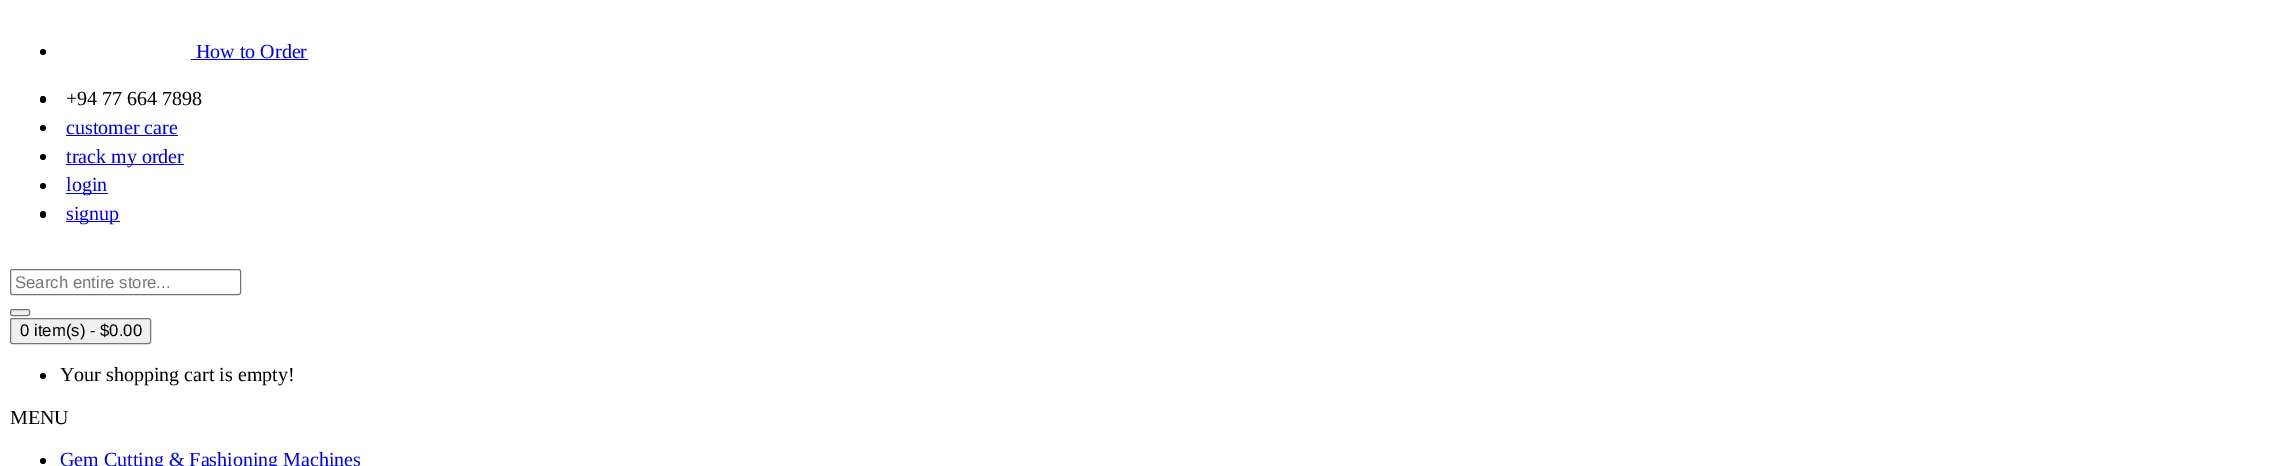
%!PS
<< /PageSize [2285 466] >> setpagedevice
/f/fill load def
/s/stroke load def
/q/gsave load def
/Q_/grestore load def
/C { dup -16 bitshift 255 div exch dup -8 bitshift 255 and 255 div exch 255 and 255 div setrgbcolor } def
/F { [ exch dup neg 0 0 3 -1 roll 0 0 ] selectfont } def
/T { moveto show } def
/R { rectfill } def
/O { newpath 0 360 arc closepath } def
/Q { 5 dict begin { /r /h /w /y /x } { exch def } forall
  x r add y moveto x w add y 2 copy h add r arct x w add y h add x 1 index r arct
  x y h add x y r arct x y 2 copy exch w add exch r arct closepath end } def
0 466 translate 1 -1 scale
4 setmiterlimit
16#FFFFFF C
0 0 2285 466 R
16#000000 C
43 52 3 O f
/LiberationSerif-Regular 20 F
16#0000EE C
(How to Order) 196 58 T
191 59 117 1 R
16#000000 C
40 96 6 7 3 Q f
(+94 77 664 7898) 66 105 T
43 128 3 O f
16#0000EE C
(customer care) 66 134 T
66 135 112 1 R
16#000000 C
43 157 3 O f
16#0000EE C
66 164 118 1 R
(track my order) 66 163 T
16#000000 C
43 186 3 O f
16#0000EE C
66 193 42 1 R
(login) 66 191 T
16#000000 C
40 211 6 7 3 Q f
16#0000EE C
66 221 54 1 R
(signup) 66 220 T
16#767676 C
10.5 269.5 230 25 2 Q s
/LiberationSans-Regular 16.75 F
16#757575 C
(Search entire store...) 15 288 T
16#EFEFEF C
10.5 309.5 19 6 2 Q q f Q_
16#767676 C
s
16#EFEFEF C
10.5 318.5 140 25 2 Q q f Q_
16#767676 C
s
16#000000 C
(0 item\(s\) - $0.00) 20 336 T
43 376 3 O f
/LiberationSerif-Regular 20 F
(Your shopping cart is empty!) 60 381 T
(MENU) 10 424 T
43 461 3 O f
16#0000EE C
(Gem Cutting & Fashioning Machines) 60 466 T
showpage
